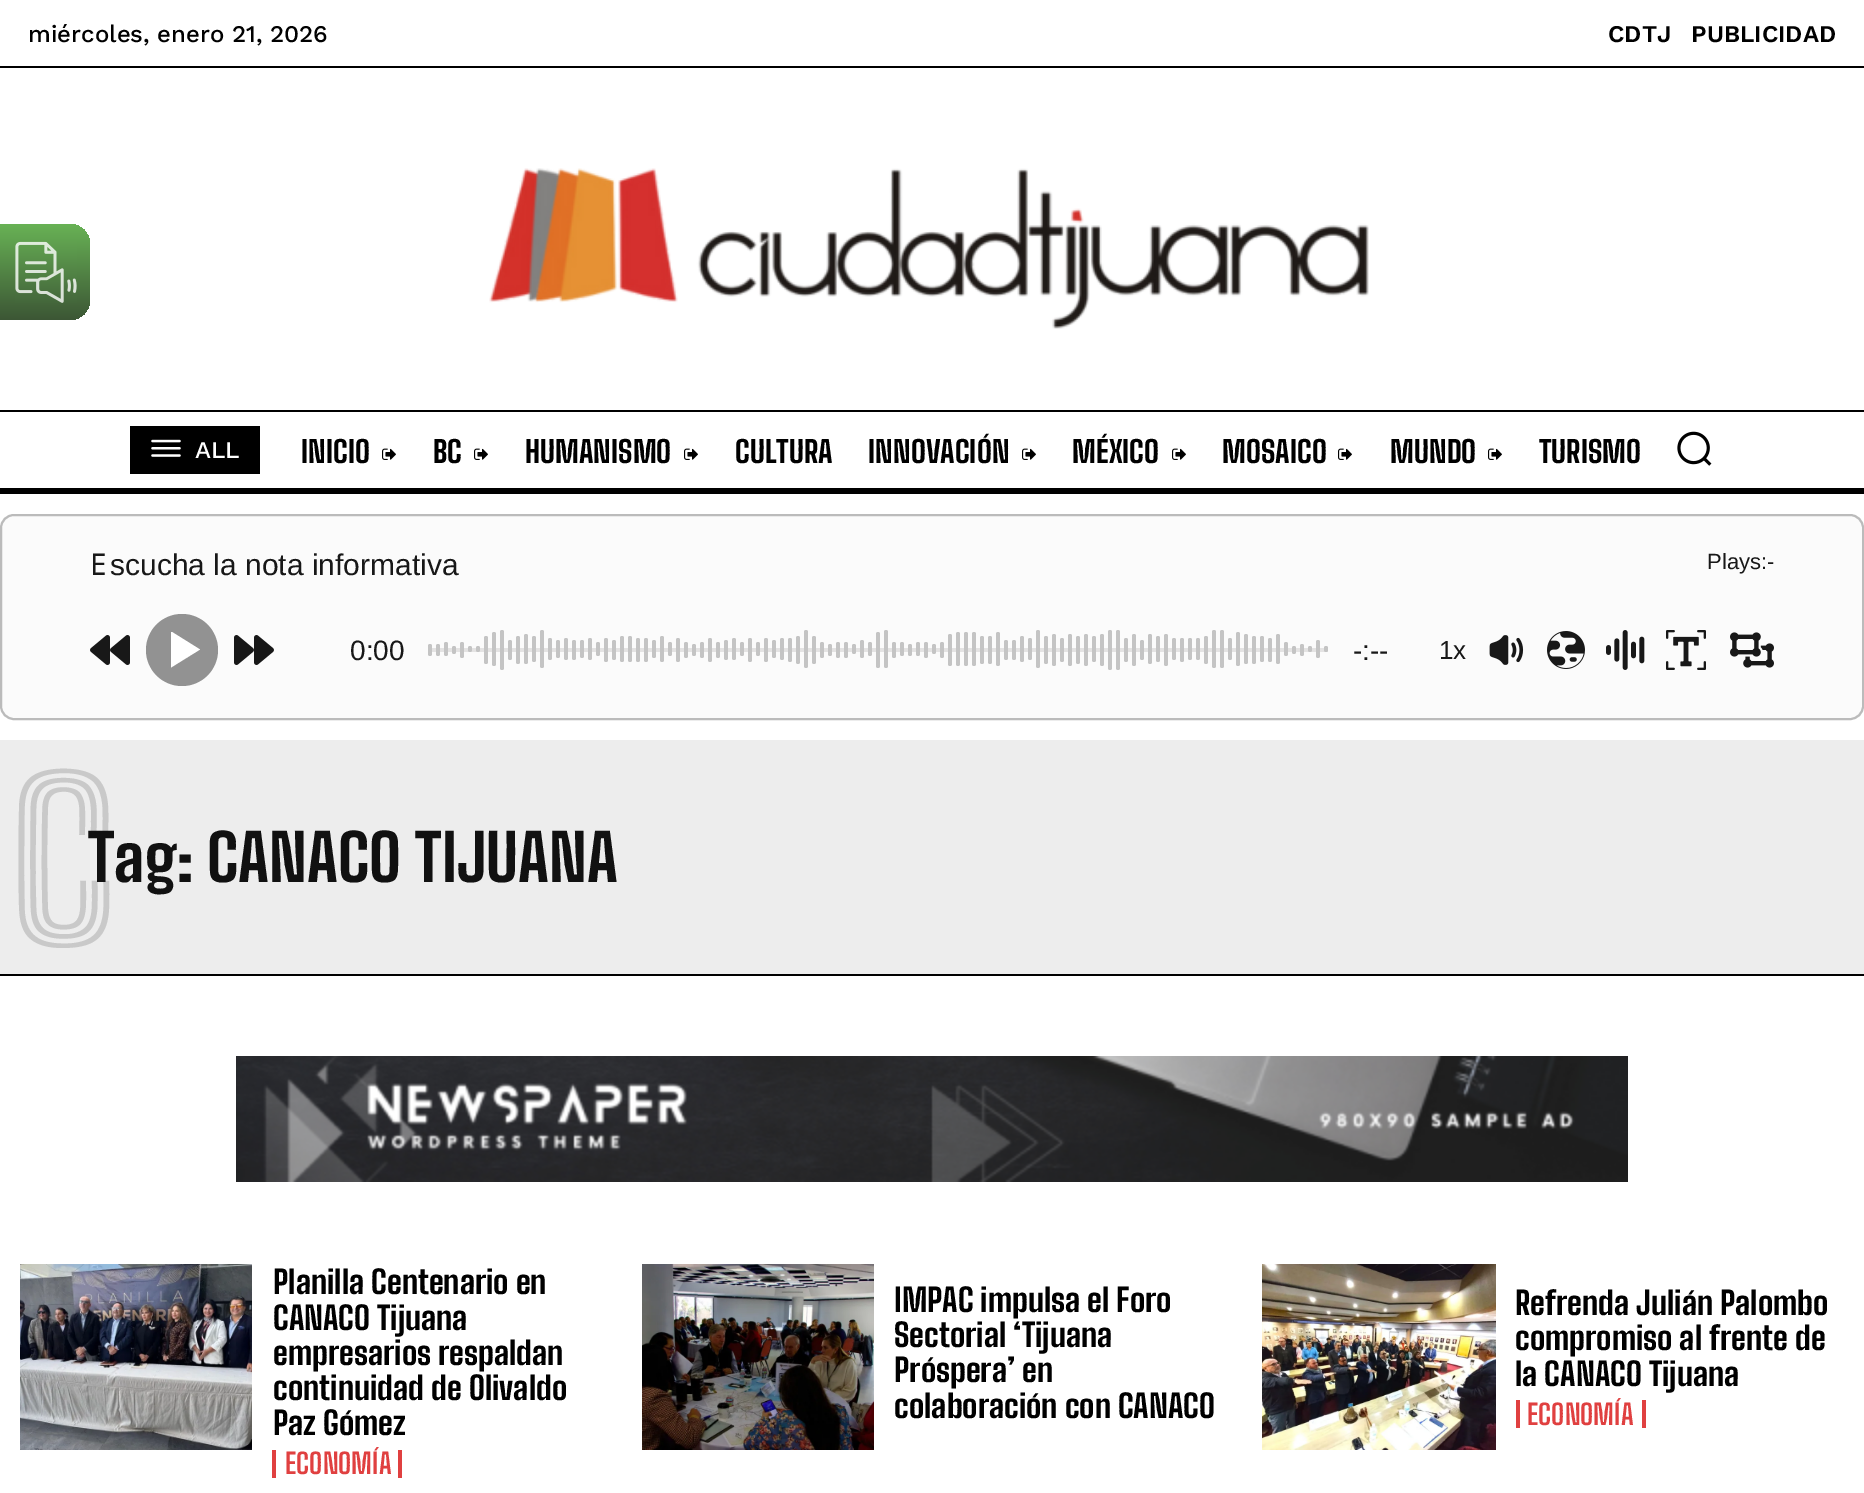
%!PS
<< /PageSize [1864 1493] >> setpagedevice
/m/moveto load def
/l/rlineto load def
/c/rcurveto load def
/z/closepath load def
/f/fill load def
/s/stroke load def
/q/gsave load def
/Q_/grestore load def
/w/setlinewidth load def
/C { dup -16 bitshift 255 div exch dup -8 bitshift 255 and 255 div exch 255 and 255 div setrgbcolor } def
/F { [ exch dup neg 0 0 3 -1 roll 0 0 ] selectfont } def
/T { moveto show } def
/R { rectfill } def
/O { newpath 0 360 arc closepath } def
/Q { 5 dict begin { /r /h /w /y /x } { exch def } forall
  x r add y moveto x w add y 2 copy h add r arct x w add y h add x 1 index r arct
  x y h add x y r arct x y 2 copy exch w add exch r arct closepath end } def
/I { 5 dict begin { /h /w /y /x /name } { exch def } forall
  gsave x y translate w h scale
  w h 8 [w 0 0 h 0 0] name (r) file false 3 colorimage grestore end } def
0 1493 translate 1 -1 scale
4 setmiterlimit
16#FFFFFF C
0 0 1864 1493 R
/WorkSans-Medium 24 F
16#000000 C
(miércoles, enero 21, 2026) 28 42 T
/WorkSans-SemiBold 24 F
(CDTJ) 1608 42 T
(PUBLICIDAD) 1691 42 T
0 66 1864 2 R
(1.rgb) 489 168 880 161 I
0 410 1864 2 R
0 488 1864 6 R
130 426 130 48 R
(2.rgb) 151 439 30 18 I
/WorkSans-Medium 24 F
16#FFFFFF C
(ALL) 195 458 T
/BigShouldersText-ExtraBold 30 F
16#000000 C
(INICIO) 301 463 T
(3.rgb) 382 448 14 12 I
(BC) 433 463 T
(3.rgb) 474 448 14 12 I
(HUMANISMO) 525 463 T
(3.rgb) 684 448 14 12 I
(CULTURA) 735 463 T
(INNOVACIÓN) 868 463 T
(3.rgb) 1022 448 14 12 I
(MÉXICO) 1072 463 T
(3.rgb) 1172 448 14 12 I
(MOSAICO) 1222 463 T
(3.rgb) 1338 448 14 12 I
(MUNDO) 1390 463 T
(3.rgb) 1488 448 14 12 I
(TURISMO) 1539 463 T
(4.rgb) 1677 431 35 35 I
16#FBFBFB C
1 515 1862 204 13 Q q f Q_
16#BBBBBB C
2 w
s
/NotoSans-Regular 30 F
16#181818 C
(E) 90 575 T
/LiberationSans-Regular 30 F
(scucha la nota informativa) 110 575 T
/LiberationSans-Regular 22 F
(Plays:-) 1707 569 T
(5.rgb) 90 635 40 30 I
16#929292 C
182 650 36 O f
16#FFFFFF C
172 632 m 28 17.5 l -29 18 l 0 -35.5 l z f
(6.rgb) 234 635 40 30 I
/LiberationSans-Regular 28 F
16#181818 C
(0:00) 350 660 T
16#E4E3E3 C
428 648 900 4 R
16#C4C4C4 C
428 644 4 12 2 Q f
436 644 4 12 2 Q f
444 642 4 14 2 Q f
452 646 4 8 2 Q f
460 642 4 16 2 Q f
468 646 4 6 2 Q f
476 646 4 6 2 Q f
484 636 4 28 2 Q f
492 632 4 34 2 Q f
500 630 4 40 2 Q f
508 640 4 20 2 Q f
516 636 4 28 2 Q f
524 634 4 30 2 Q f
532 636 4 26 2 Q f
540 630 4 38 2 Q f
548 638 4 22 2 Q f
556 640 4 18 2 Q f
564 638 4 22 2 Q f
572 640 4 20 2 Q f
580 640 4 18 2 Q f
588 638 4 22 2 Q f
596 642 4 14 2 Q f
604 638 4 24 2 Q f
612 640 4 20 2 Q f
620 636 4 26 2 Q f
628 636 4 26 2 Q f
636 638 4 24 2 Q f
644 638 4 24 2 Q f
652 640 4 18 2 Q f
660 636 4 26 2 Q f
668 642 4 14 2 Q f
676 638 4 24 2 Q f
684 642 4 16 2 Q f
692 644 4 12 2 Q f
700 642 4 16 2 Q f
708 638 4 24 2 Q f
716 642 4 16 2 Q f
724 640 4 20 2 Q f
732 638 4 22 2 Q f
740 642 4 14 2 Q f
748 638 4 24 2 Q f
756 642 4 14 2 Q f
764 638 4 24 2 Q f
772 640 4 18 2 Q f
780 638 4 22 2 Q f
788 638 4 24 2 Q f
796 636 4 28 2 Q f
804 630 4 38 2 Q f
812 636 4 28 2 Q f
820 642 4 16 2 Q f
828 644 4 12 2 Q f
836 642 4 16 2 Q f
844 642 4 16 2 Q f
852 644 4 10 2 Q f
860 640 4 18 2 Q f
868 642 4 14 2 Q f
876 632 4 36 2 Q f
884 630 4 38 2 Q f
892 642 4 16 2 Q f
900 642 4 14 2 Q f
908 644 4 12 2 Q f
916 642 4 14 2 Q f
924 642 4 16 2 Q f
932 644 4 10 2 Q f
940 642 4 16 2 Q f
948 634 4 32 2 Q f
956 632 4 34 2 Q f
964 632 4 34 2 Q f
972 632 4 34 2 Q f
980 636 4 28 2 Q f
988 636 4 28 2 Q f
996 632 4 34 2 Q f
1004 640 4 20 2 Q f
1012 640 4 20 2 Q f
1020 636 4 26 2 Q f
1028 638 4 22 2 Q f
1036 630 4 38 2 Q f
1044 636 4 28 2 Q f
1052 634 4 32 2 Q f
1060 638 4 24 2 Q f
1068 634 4 32 2 Q f
1076 636 4 28 2 Q f
1084 634 4 32 2 Q f
1092 636 4 26 2 Q f
1100 634 4 32 2 Q f
1108 630 4 40 2 Q f
1116 630 4 40 2 Q f
1124 638 4 24 2 Q f
1132 634 4 32 2 Q f
1140 640 4 20 2 Q f
1148 634 4 30 2 Q f
1156 636 4 26 2 Q f
1164 634 4 32 2 Q f
1172 638 4 22 2 Q f
1180 638 4 24 2 Q f
1188 638 4 22 2 Q f
1196 638 4 22 2 Q f
1204 636 4 28 2 Q f
1212 630 4 38 2 Q f
1220 630 4 38 2 Q f
1228 638 4 22 2 Q f
1236 632 4 34 2 Q f
1244 634 4 30 2 Q f
1252 636 4 28 2 Q f
1260 636 4 26 2 Q f
1268 638 4 24 2 Q f
1276 634 4 30 2 Q f
1284 642 4 14 2 Q f
1292 646 4 8 2 Q f
1300 644 4 12 2 Q f
1308 646 4 6 2 Q f
1316 640 4 18 2 Q f
1324 646 4 6 2 Q f
16#181818 C
(-:--) 1353 660 T
/LiberationSans-Regular 26 F
(1x) 1439 659 T
(7.rgb) 1489 635 35 30 I
(8.rgb) 1547 631 38 38 I
(9.rgb) 1606 630 39 40 I
(10.rgb) 1666 630 40 40 I
(11.rgb) 1730 632 44 36 I
16#EDEDED C
0 740 1864 234 R
16#000000 C
0 974 1864 2 R
/BigShouldersInlineText-ExtraBold 220 F
16#C9C9C9 C
(C) 9 946 T
/BigShouldersText-ExtraBold 64 F
16#111111 C
(Tag: CANACO TIJUANA) 88 882 T
(12.rgb) 236 1056 1392 126 I
(13.rgb) 20 1264 232 186 I
/BigShouldersText-ExtraBold 32 F
16#000000 C
(Planilla Centenario en) 273 1294 T
(CANACO Tijuana) 273 1330 T
(empresarios respaldan) 273 1365 T
(continuidad de Olivaldo) 273 1400 T
(Paz Gómez) 273 1435 T
16#E04040 C
398 1450 4 28 R
272 1450 4 28 R
/BigShouldersText-Bold 28 F
(ECONOMÍA) 285 1474 T
(14.rgb) 642 1264 232 186 I
/BigShouldersText-ExtraBold 32 F
16#000000 C
(IMPAC impulsa el Foro) 894 1312 T
(Sectorial ‘Tijuana) 894 1347 T
(Próspera’ en) 894 1382 T
(colaboración con CANACO) 894 1418 T
(15.rgb) 1262 1264 234 186 I
(Refrenda Julián Palombo) 1515 1315 T
(compromiso al frente de) 1515 1350 T
(la CANACO Tijuana) 1515 1386 T
16#E04040 C
1642 1400 4 28 R
1516 1400 4 28 R
/BigShouldersText-Bold 28 F
(ECONOMÍA) 1527 1425 T
q 0 224 m 70 0 l 11 0 20 9 20 20 c 0 56 l 0 11 -9 20 -20 20 c -70 0 l z clip newpath
<< /ShadingType 2 /ColorSpace /DeviceRGB /Coords [45 224 45 320] /Extend [true true] /Function << /FunctionType 2 /Domain [0 1] /C0 [.408 .698 .333] /C1 [.235 .337 .208] /N 1 >> >> shfill Q_
(16.rgb) 15 241 62 62 I
showpage
